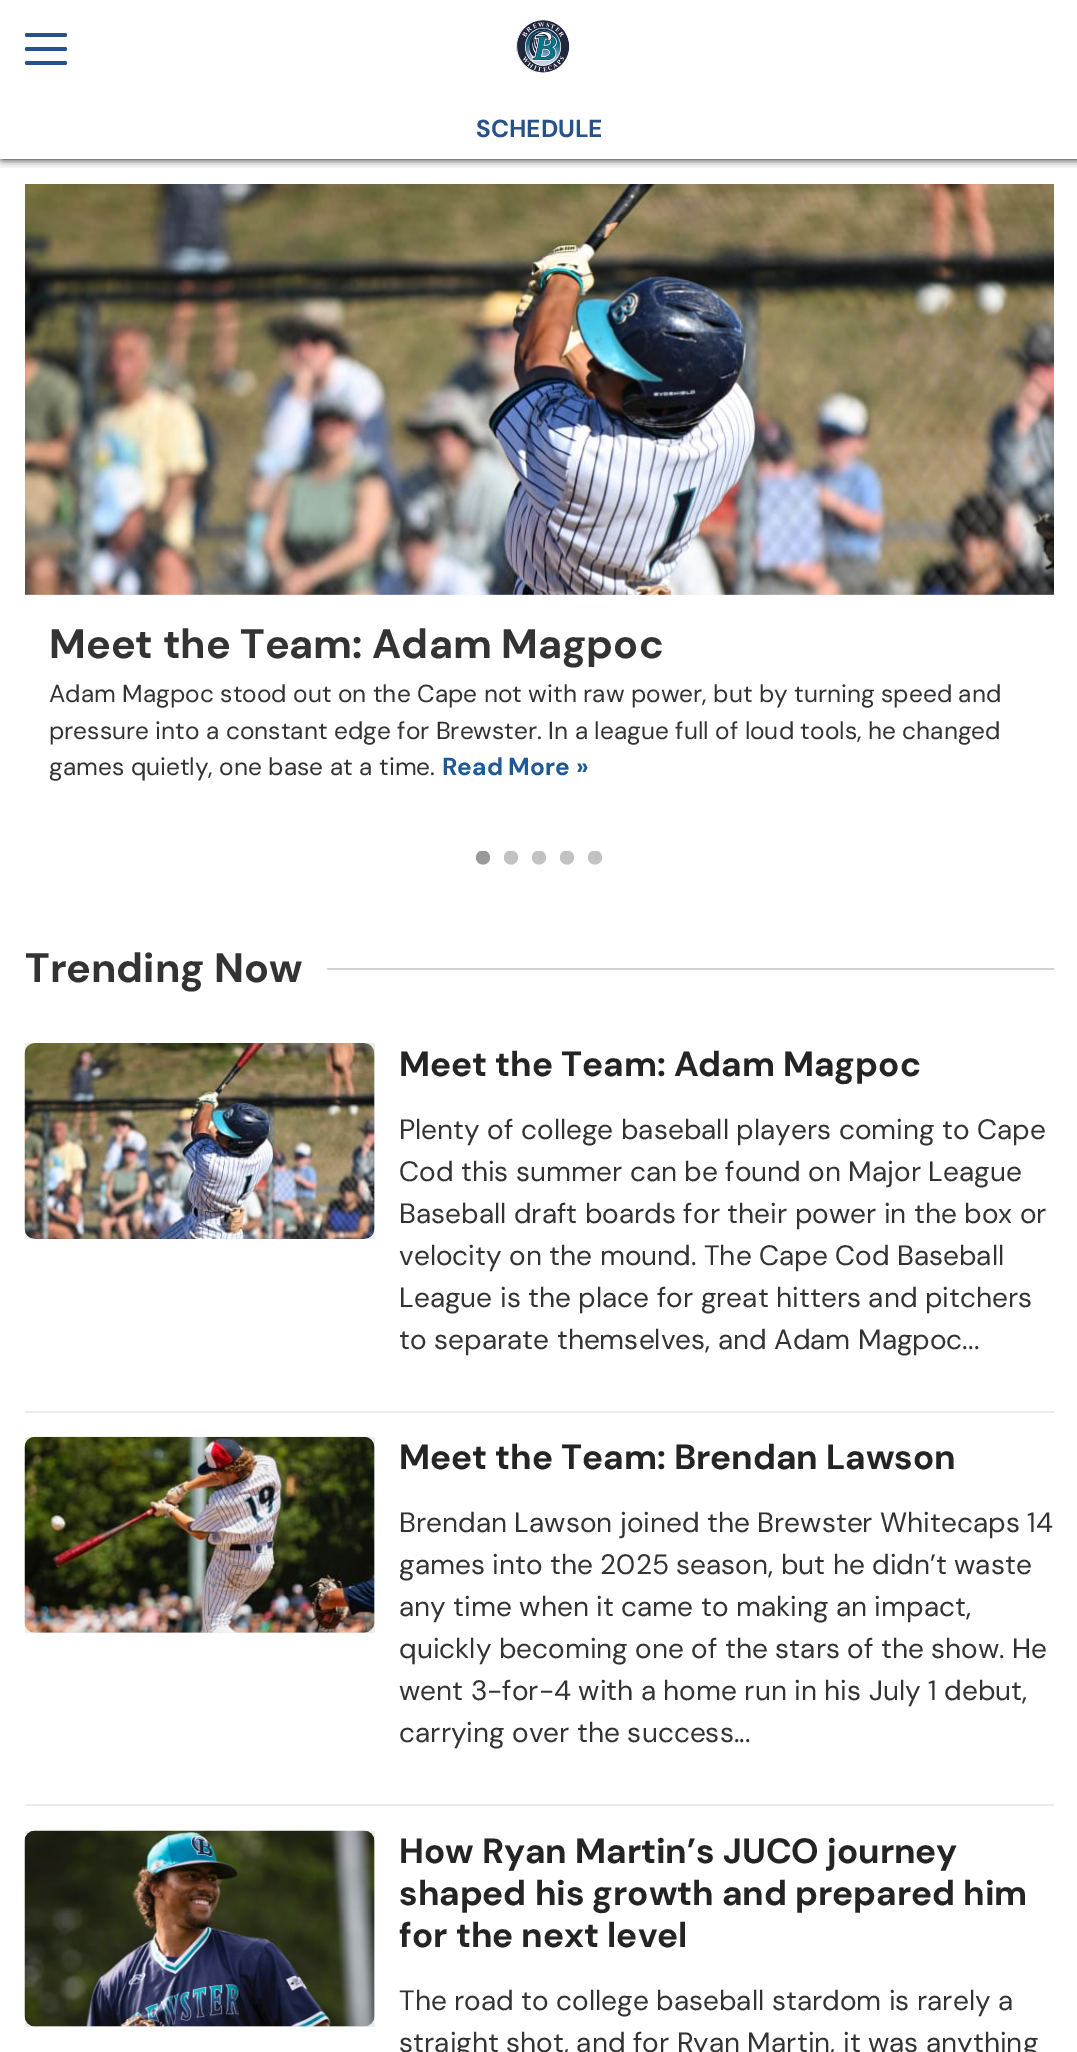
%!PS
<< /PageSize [1077 2052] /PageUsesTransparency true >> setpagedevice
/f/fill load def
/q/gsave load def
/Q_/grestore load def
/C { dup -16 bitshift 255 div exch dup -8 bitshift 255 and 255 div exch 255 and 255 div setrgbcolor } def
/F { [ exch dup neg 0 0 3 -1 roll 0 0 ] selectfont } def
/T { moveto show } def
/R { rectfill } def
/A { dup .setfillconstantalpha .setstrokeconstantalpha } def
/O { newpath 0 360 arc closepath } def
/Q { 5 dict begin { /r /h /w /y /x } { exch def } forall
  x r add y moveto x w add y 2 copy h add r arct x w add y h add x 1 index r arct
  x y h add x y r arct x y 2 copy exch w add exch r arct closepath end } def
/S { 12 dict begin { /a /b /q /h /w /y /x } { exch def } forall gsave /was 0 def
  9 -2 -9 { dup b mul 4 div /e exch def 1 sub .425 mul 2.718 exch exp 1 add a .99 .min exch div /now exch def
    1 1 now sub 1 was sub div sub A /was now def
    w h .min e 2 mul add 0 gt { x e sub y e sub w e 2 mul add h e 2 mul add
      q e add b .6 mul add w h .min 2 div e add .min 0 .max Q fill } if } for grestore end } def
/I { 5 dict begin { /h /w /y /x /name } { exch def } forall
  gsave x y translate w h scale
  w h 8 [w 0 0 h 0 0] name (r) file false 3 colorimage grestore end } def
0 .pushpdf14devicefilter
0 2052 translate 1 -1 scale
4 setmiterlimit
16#FFFFFF C
0 0 1077 2052 R
q
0 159 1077 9 rectclip
16#000000 C
2 0 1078 159 0 4.5 1 S
Q_
16#26518D C
25 33 42 4 2 Q f
25 47 42 4 2 Q f
25 61 42 4 2 Q f
(1.rgb) 516 19 54 54 I
/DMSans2-Bold 24.5 F
(SCHEDULE) 476 137 T
(2.rgb) 25 184 1029 411 I
/DMSans-Bold 41.25 F
16#333333 C
(Meet the Team: Adam Magpoc) 49 658 T
/DMSans-Regular 24.5 F
(Adam Magpoc stood out on the Cape not with raw power, but by turning speed and) 49 702 T
(pressure into a constant edge for Brewster. In a league full of loud tools, he changed) 49 739 T
(games quietly, one base at a time.) 49 775 T
/DMSans2-Bold 24.5 F
16#1F5A97 C
(Read More ») 442 775 T
q
476 851 14 14 rectclip
16#999999 C
483 857.5 7 O f
Q_
q
504 851 14 14 rectclip
16#C2C2C2 C
511 857.5 7 O f
Q_
q
532 851 14 14 rectclip
16#C2C2C2 C
539 857.5 7 O f
Q_
q
560 851 14 14 rectclip
16#C2C2C2 C
567 857.5 7 O f
Q_
q
588 851 14 14 rectclip
16#C2C2C2 C
595 857.5 7 O f
Q_
/DMSans-Bold 41.25 F
16#333333 C
(Trending Now) 25 982 T
16#D2D2D2 C
327 968 727 2 R
16#ECECEC C
25 1411 1029 2 R
25 1043 350 196 R
(3.rgb) 24 1043 351 196 I
/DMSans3-Bold 35 F
16#242424 C
(Meet the Team: Adam Magpoc) 399 1076 T
/DMSans2-Regular 28 F
16#333333 C
(Plenty of college baseball players coming to Cape) 399 1139 T
(Cod this summer can be found on Major League) 399 1181 T
(Baseball draft boards for their power in the box or) 399 1223 T
(velocity on the mound. The Cape Cod Baseball) 399 1265 T
(League is the place for great hitters and pitchers) 399 1307 T
(to separate themselves, and Adam Magpoc...) 399 1349 T
16#ECECEC C
25 1804 1029 2 R
25 1437 350 196 R
(4.rgb) 24 1436 351 197 I
/DMSans3-Bold 35 F
16#242424 C
(Meet the Team: Brendan Lawson) 399 1469 T
/DMSans2-Regular 28 F
16#333333 C
(Brendan Lawson joined the Brewster Whitecaps 14) 399 1532 T
(games into the 2025 season, but he didn’t waste) 399 1574 T
(any time when it came to making an impact,) 399 1616 T
(quickly becoming one of the stars of the show. He) 399 1658 T
(went 3-for-4 with a home run in his July 1 debut,) 399 1700 T
(carrying over the success...) 399 1742 T
16#ECECEC C
25 1831 350 196 R
(5.rgb) 24 1830 351 197 I
/DMSans3-Bold 35 F
16#242424 C
(How Ryan Martin’s JUCO journey) 399 1863 T
(shaped his growth and prepared him) 399 1905 T
(for the next level) 399 1947 T
/DMSans2-Regular 28 F
16#333333 C
(The road to college baseball stardom is rarely a) 399 2010 T
(straight shot, and for Ryan Martin, it was anything) 399 2052 T
.poppdf14devicefilter showpage
